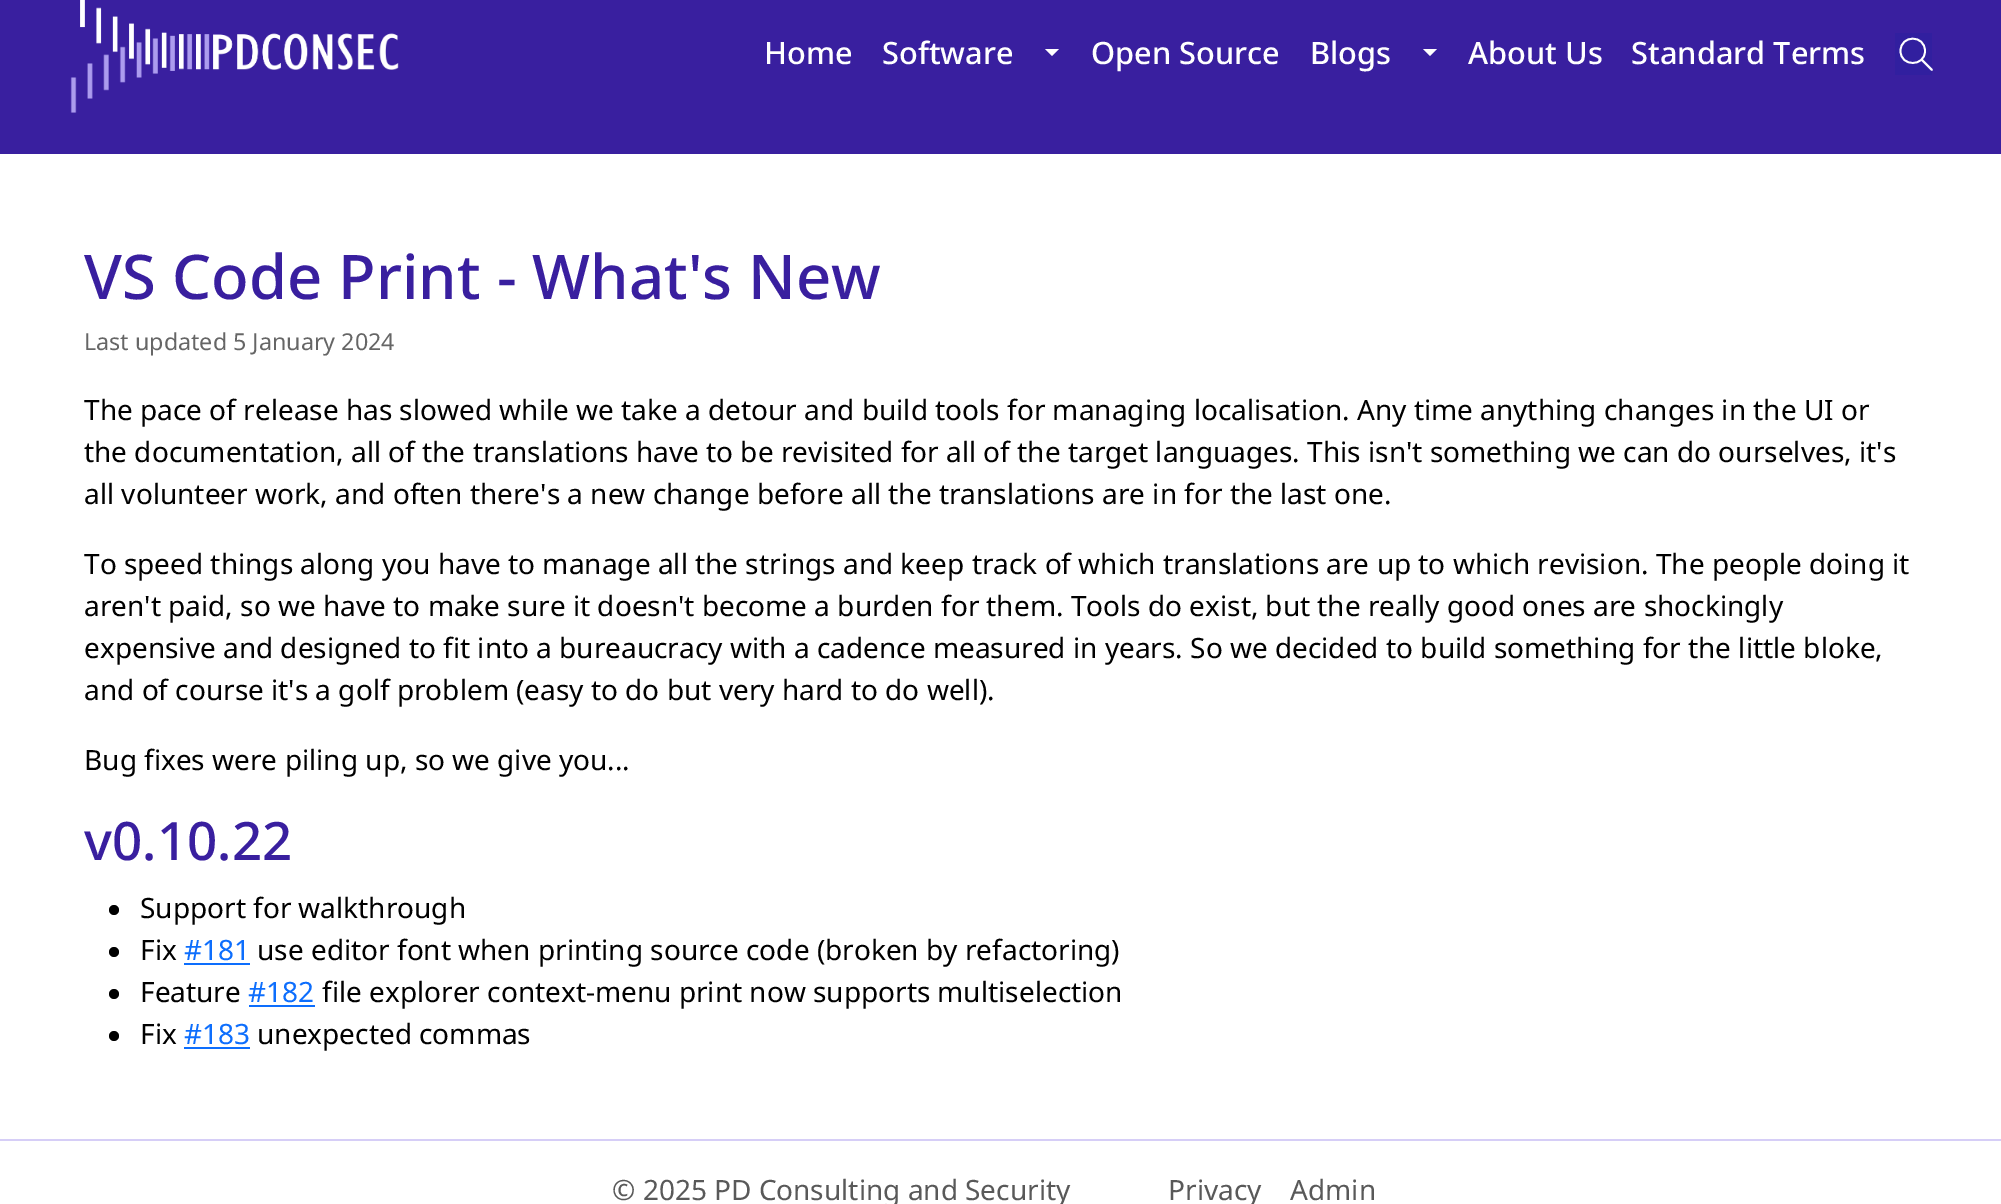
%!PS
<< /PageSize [2001 1204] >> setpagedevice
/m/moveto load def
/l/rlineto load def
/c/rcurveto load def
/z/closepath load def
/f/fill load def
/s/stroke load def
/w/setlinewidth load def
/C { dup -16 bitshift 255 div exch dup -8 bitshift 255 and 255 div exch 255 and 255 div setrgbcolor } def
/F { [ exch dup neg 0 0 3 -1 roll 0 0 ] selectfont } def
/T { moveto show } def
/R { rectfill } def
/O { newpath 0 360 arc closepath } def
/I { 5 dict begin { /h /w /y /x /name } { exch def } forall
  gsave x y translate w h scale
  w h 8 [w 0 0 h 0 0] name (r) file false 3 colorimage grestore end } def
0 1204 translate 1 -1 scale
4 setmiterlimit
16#FFFFFF C
0 0 2001 1204 R
16#391F9F C
0 0 2001 154 R
(1.rgb) 70 0 329 113 I
/NotoSans-Medium 30.75 F
16#FFFFFF C
(Home) 764 64 T
(Software) 882 64 T
1045 49 m 14 0 l -7 7 l z f
(Open Source) 1091 64 T
(Blogs) 1310 64 T
1423 49 m 14 0 l -7 7 l z f
(About Us) 1468 64 T
(Standard Terms) 1631 64 T
16#311F9F C
1895 33 37 42 R
16#FFFFFF C
1.8 w
1 setlinecap
1 setlinejoin
1932 70 m -10.5 -10.5 l 1925 51 m 0 16 -24.5 16 -24.5 0 c 0 -16.5 24.5 -16.5 24.5 0 c z s
/NotoSans-Medium 61.6 F
16#391F9F C
(VS Code Print - What's New) 84 299 T
/NotoSans-Regular 23.3 F
16#666666 C
(Last updated 5 January 2024) 84 350 T
/NotoSans-Regular 28 F
16#000000 C
(The pace of release has slowed while we take a detour and build tools for managing localisation. Any time anything changes in the UI or) 84 420 T
(the documentation, all of the translations have to be revisited for all of the target languages. This isn't something we can do ourselves, it's) 84 462 T
(all volunteer work, and often there's a new change before all the translations are in for the last one.) 84 504 T
(To speed things along you have to manage all the strings and keep track of which translations are up to which revision. The people doing it) 84 574 T
(aren't paid, so we have to make sure it doesn't become a burden for them. Tools do exist, but the really good ones are shockingly) 84 616 T
(expensive and designed to fit into a bureaucracy with a cadence measured in years. So we decided to build something for the little bloke,) 84 658 T
(and of course it's a golf problem \(easy to do but very hard to do well\).) 84 700 T
(Bug fixes were piling up, so we give you...) 84 770 T
/NotoSans-Medium 53 F
16#391F9F C
(v0.10.22) 84 860 T
16#000000 C
114 910 5 O f
/NotoSans-Regular 28 F
(Support for walkthrough) 140 918 T
114 952 5 O f
(Fix) 140 960 T
16#0D6EFD C
(#181) 184 960 T
184 963 66 2 R
16#000000 C
(use editor font when printing source code \(broken by refactoring\)) 257 960 T
114 994 5 O f
(Feature) 140 1002 T
16#0D6EFD C
(#182) 248 1002 T
249 1005 66 2 R
16#000000 C
(file explorer context-menu print now supports multiselection) 322 1002 T
114 1036 5 O f
(Fix) 140 1044 T
16#0D6EFD C
(#183) 184 1044 T
184 1047 66 2 R
16#000000 C
(unexpected commas) 257 1044 T
16#D6CEF7 C
0 1139 2001 2 R
16#595959 C
(© 2025 PD Consulting and Security) 612 1200 T
(Privacy) 1168 1200 T
(Admin) 1290 1200 T
showpage
